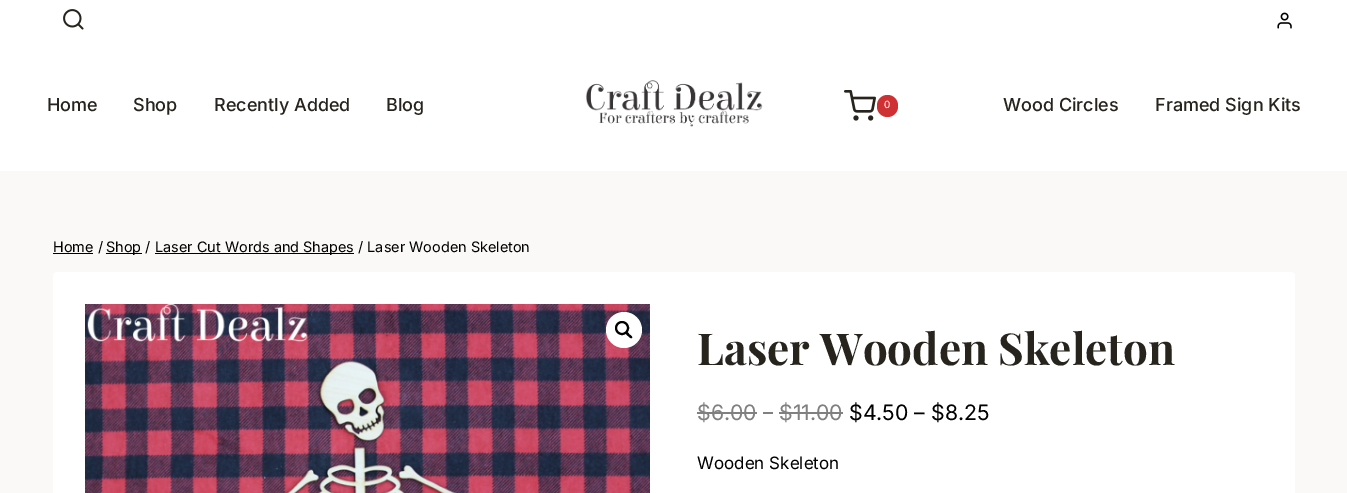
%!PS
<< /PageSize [1347 493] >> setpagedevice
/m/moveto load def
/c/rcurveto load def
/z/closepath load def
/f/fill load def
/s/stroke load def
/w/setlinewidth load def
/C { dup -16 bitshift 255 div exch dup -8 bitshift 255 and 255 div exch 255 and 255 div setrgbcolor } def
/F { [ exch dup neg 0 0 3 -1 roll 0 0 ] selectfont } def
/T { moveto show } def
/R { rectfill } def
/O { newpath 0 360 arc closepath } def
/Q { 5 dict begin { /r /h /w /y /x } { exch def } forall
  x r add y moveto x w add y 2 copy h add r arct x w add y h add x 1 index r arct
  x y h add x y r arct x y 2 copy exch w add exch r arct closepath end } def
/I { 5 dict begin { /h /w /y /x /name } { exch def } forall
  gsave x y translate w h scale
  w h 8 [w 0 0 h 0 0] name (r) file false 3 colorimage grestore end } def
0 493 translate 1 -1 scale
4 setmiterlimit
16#FAF9F7 C
0 0 1347 493 R
16#FFFFFF C
0 0 1347 171 R
(1.rgb) 63 9 21 21 I
(2.rgb) 1277 12 15 17 I
/Inter-Medium 18 F
16#27241D C
(Home) 47 111 T
(Shop) 133 111 T
(Recently Added) 214 111 T
(Blog) 386 111 T
(3.rgb) 585 80 178 47 I
(4.rgb) 844 90 32 31 I
16#CF3033 C
877 95 21 22 10.5 Q f
/Inter-Regular 10 F
16#FFFFFF C
(0) 884 108 T
/Inter-Medium 18 F
16#27241D C
(Wood Circles) 1003 111 T
(Framed Sign Kits) 1155 111 T
16#000000 C
53 253 40 1 R
/Inter-Regular 14.45 F
(Home /) 53 252 T
106 253 36 1 R
(Shop /) 106 252 T
155 253 199 1 R
(Laser Cut Words and Shapes / Laser Wooden Skeleton) 155 252 T
16#FFFFFF C
53 272 1242 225 4 Q f
(5.rgb) 85 304 565 189 I
624 330 18 O f
16#000000 C
2 w
622 328 6 O s
626 332.5 m 1.5 -1.5 3 1.5 3.5 2 c 1 .5 3.5 2.5 2.5 3.5 c -1.5 1 -3 -1.5 -4 -2 c -.5 -.5 -3 -2.5 -2 -3.5 c z f
/PlayfairDisplay-Bold 44 F
16#27241D C
(Laser Wooden Skeleton) 697 365 T
/Inter-Regular 21.25 F
16#808080 C
($6.00) 697 420 T
697 412 60 2 R
763 412 10 2 R
($11.00) 779 420 T
779 412 64 2 R
16#000000 C
($4.50 – $8.25) 849 420 T
/Inter-Regular 17 F
(Wooden Skeleton) 697 469 T
showpage
